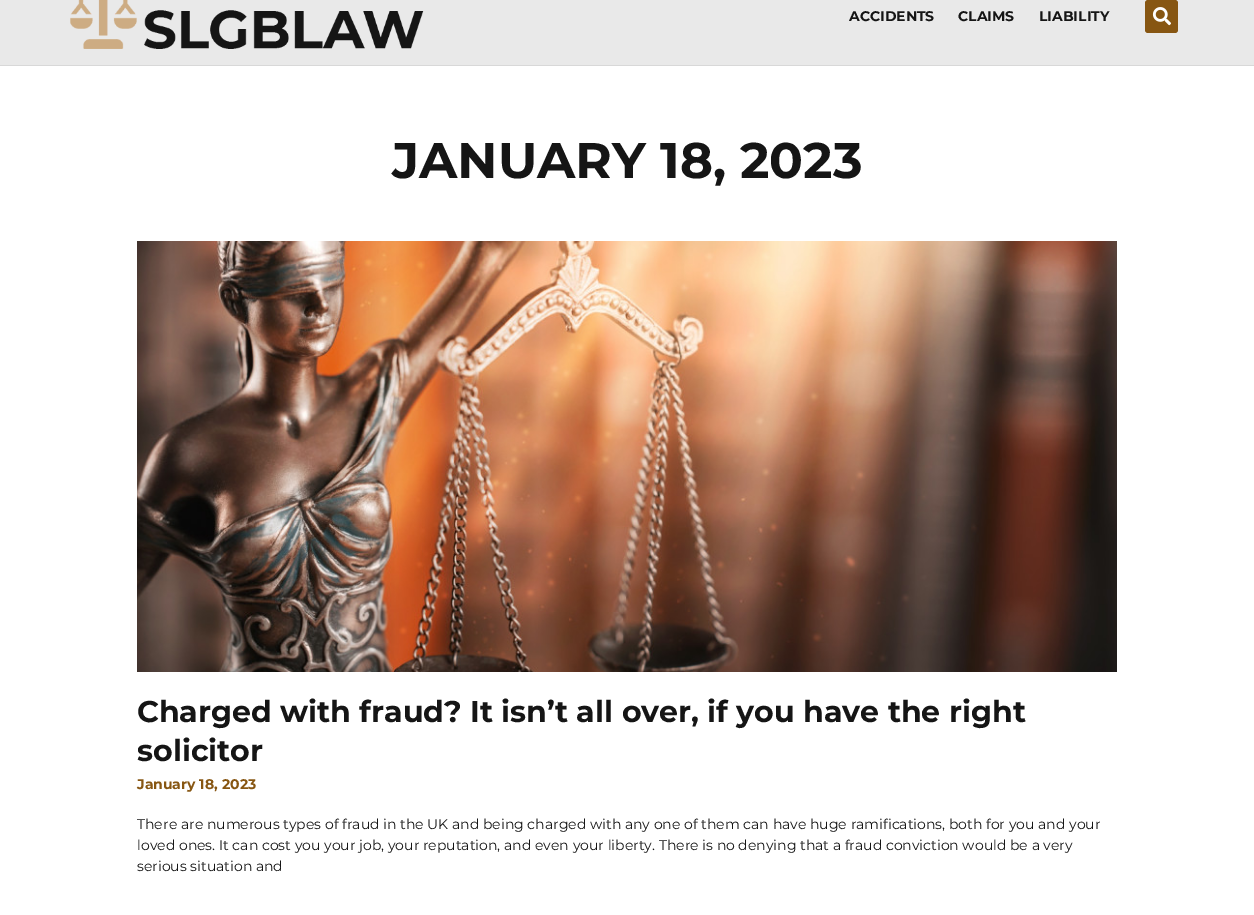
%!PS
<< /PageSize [1254 915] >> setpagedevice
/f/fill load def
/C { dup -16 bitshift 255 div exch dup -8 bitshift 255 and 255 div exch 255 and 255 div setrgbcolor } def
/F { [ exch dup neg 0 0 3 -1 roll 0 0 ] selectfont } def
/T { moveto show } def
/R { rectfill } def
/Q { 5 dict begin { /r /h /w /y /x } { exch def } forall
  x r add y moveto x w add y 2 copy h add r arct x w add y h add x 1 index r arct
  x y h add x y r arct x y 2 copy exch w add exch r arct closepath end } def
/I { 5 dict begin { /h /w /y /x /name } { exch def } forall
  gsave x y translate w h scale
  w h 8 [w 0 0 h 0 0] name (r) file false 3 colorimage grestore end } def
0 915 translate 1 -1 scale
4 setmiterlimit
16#FFFFFF C
0 0 1254 915 R
16#E9E9E9 C
0 0 1254 65 R
16#D8D8D8 C
0 65 1254 1 R
(1.rgb) 70 0 354 49 I
/Montserrat-Bold 14 F
16#151515 C
(ACCIDENTS) 849 21 T
(CLAIMS) 958 21 T
(LIABILITY) 1039 21 T
16#875612 C
1145 0 33 33 3 Q f
(2.rgb) 1152 7 19 19 I
/Montserrat-Bold 50 F
16#151515 C
(JANUARY 18, 2023) 392 178 T
(3.rgb) 137 241 980 431 I
/Montserrat-Bold 30 F
(Charged with fraud? It isn’t all over, if you have the right) 137 722 T
(solicitor) 137 761 T
/Montserrat-Bold 14 F
16#875612 C
(January 18, 2023) 137 789 T
/Montserrat-Regular 14 F
16#151515 C
(There are numerous types of fraud in the UK and being charged with any one of them can have huge ramifications, both for you and your) 137 829 T
(loved ones. It can cost you your job, your reputation, and even your liberty. There is no denying that a fraud conviction would be a very) 137 850 T
(serious situation and) 137 871 T
showpage
